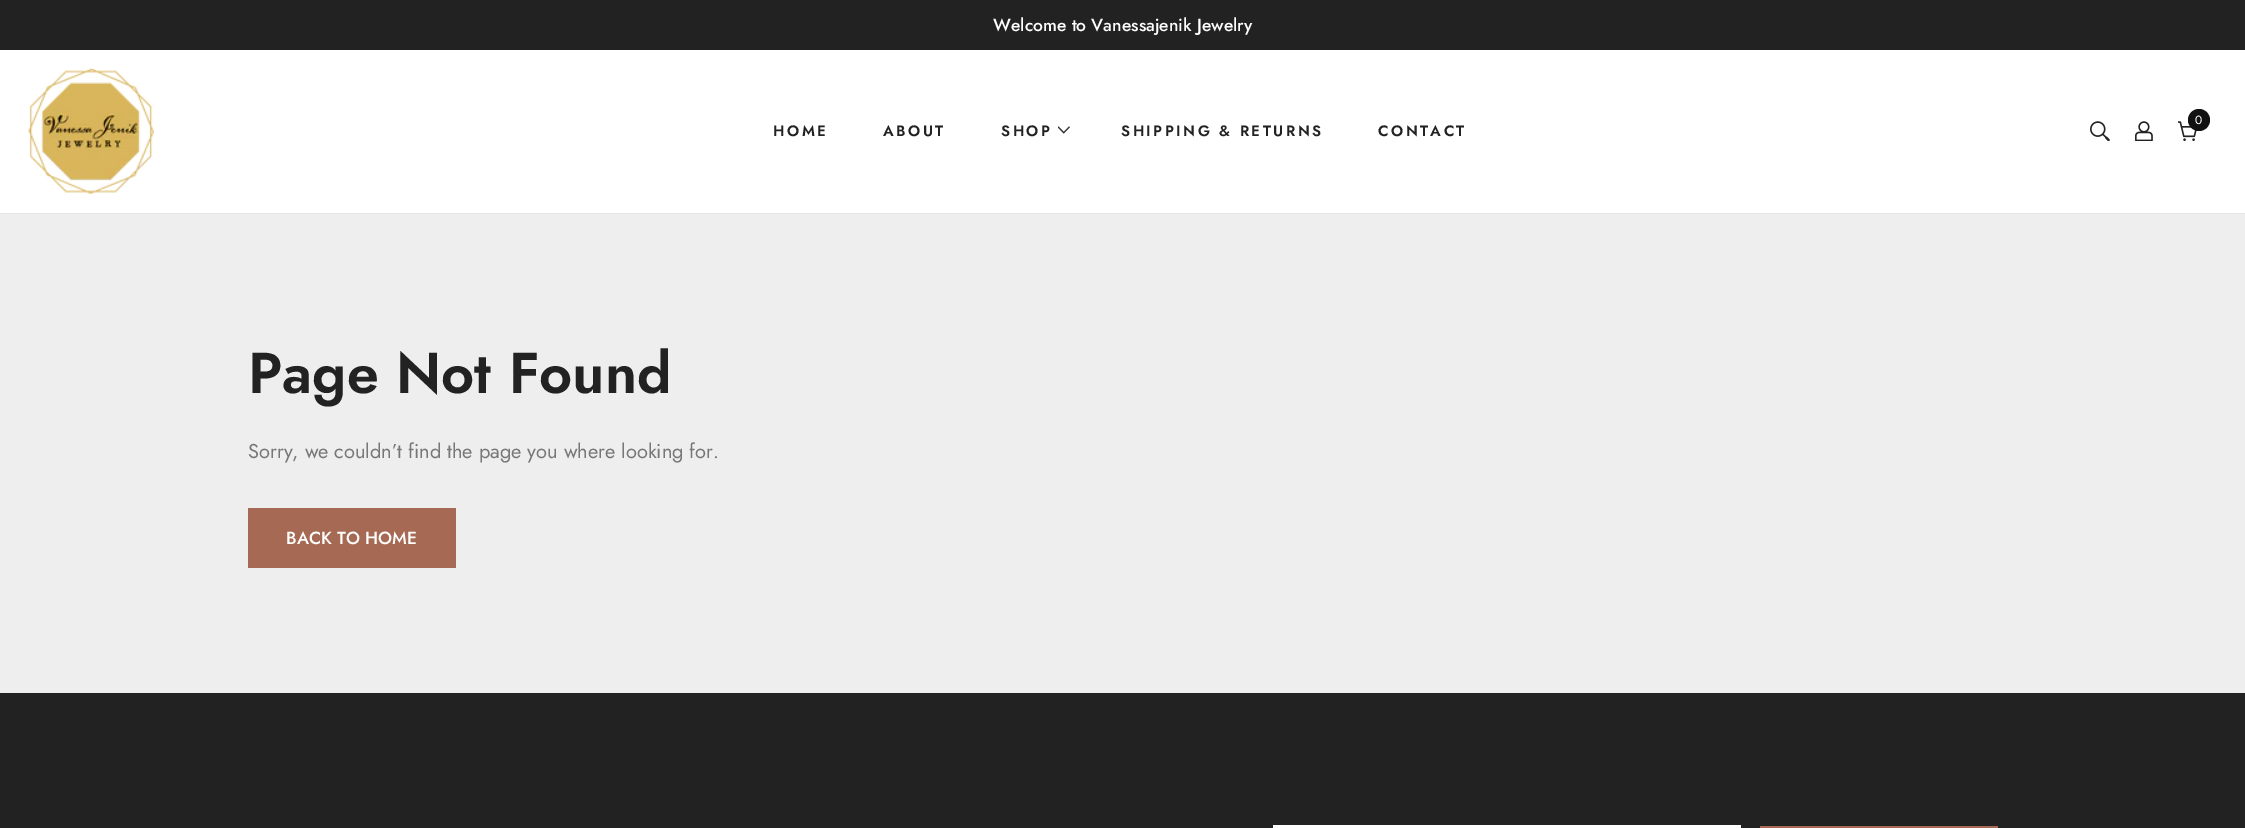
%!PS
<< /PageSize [2245 828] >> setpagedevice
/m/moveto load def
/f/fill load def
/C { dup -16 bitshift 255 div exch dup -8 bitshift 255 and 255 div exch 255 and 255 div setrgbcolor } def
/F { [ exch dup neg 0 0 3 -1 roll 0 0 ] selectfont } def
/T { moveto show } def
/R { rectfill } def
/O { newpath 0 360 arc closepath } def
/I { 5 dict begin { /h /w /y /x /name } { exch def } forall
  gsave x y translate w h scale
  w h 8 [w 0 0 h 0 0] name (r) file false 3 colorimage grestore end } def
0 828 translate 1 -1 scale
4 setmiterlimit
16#FFFFFF C
0 0 2245 828 R
16#222222 C
0 0 2245 50 R
/Jost-Medium 17.5 F
16#FFFFFF C
(Welcome to Vanessajenik Jewelry) 993 31 T
16#E6E6E6 C
0 213 2245 1 R
(1.rgb) 28 68 126 126 I
(2.rgb) 2178 121 19 20 I
16#111111 C
2199 120 11 O f
/Jost-Regular 12 F
16#FFFFFF C
(0) 2195 124 T
(3.rgb) 2090 121 20 20 I
(4.rgb) 2135 121 18 20 I
/Jost-SemiBold 15 F
16#222222 C
773 136 m 2.5 0 (HOME) ashow
883 136 m 2.5 0 (ABOUT) ashow
1001 136 m 2.5 0 (SHOP) ashow
(5.rgb) 1058 126 12 8 I
1121 136 m 2.5 0 (SHIPPING & RETURNS) ashow
1378 136 m 2.5 0 (CONTACT) ashow
16#EEEEEE C
0 214 2245 479 R
/Jost-SemiBold 57.5 F
16#222222 C
(Page Not Found) 248 393 T
/Jost-Regular 20 F
16#777777 C
(Sorry, we couldn’t find the page you where looking for.) 248 458 T
16#A66953 C
248 508 208 60 R
/Jost-Medium 17.5 F
16#FFFFFF C
(BACK TO HOME) 286 544 T
16#222222 C
0 693 2245 135 R
16#FFFFFF C
1273 825 468 3 R
16#A66953 C
1760 826 238 2 R
showpage
